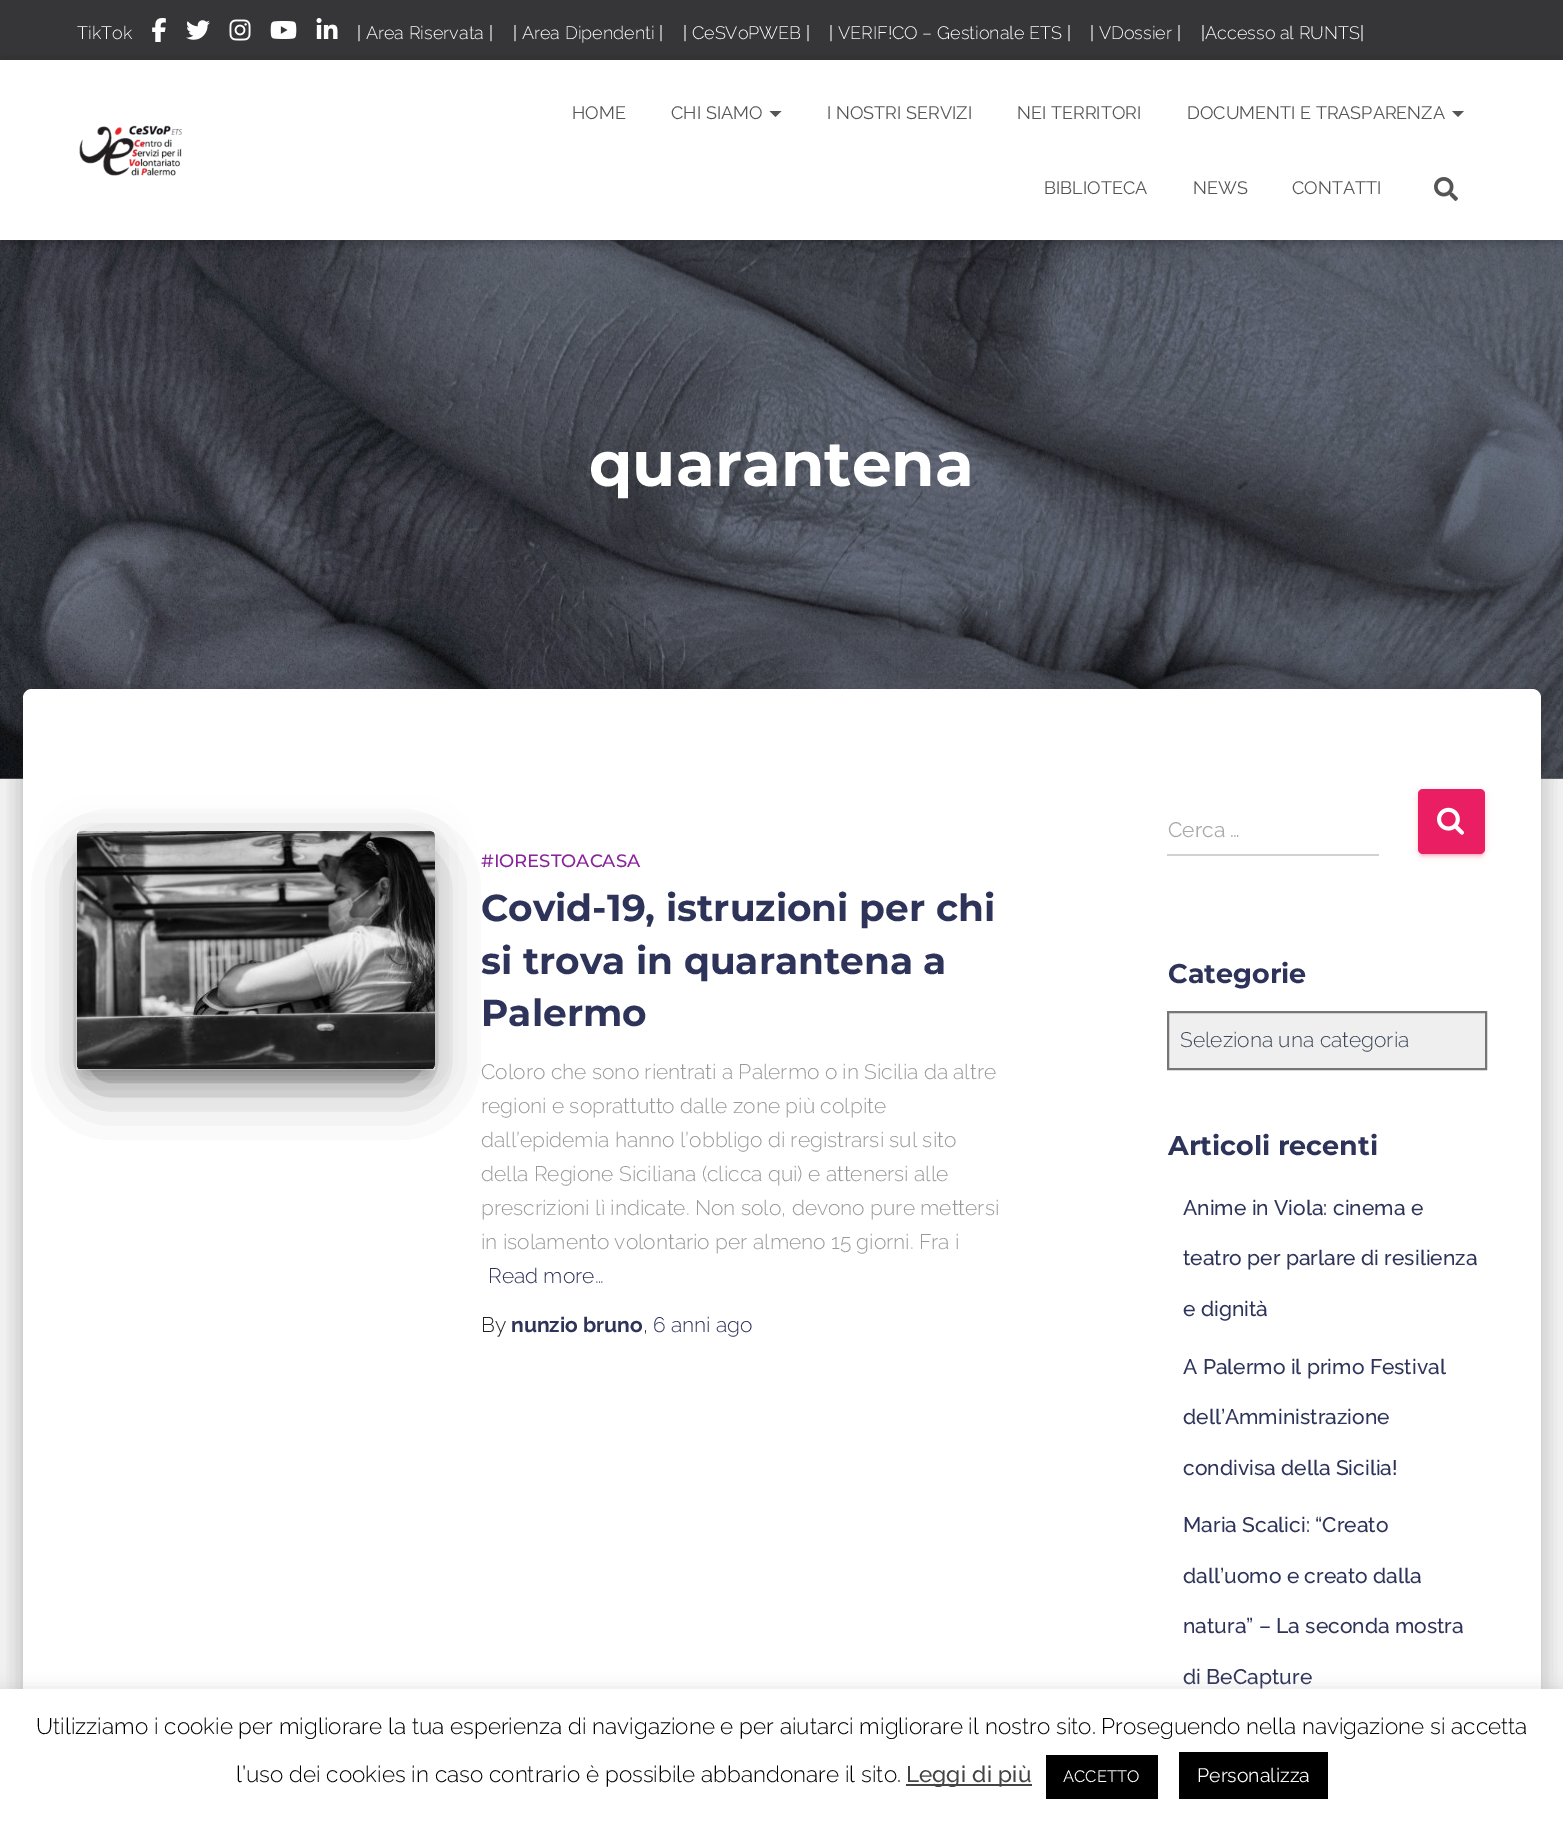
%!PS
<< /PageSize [1563 1824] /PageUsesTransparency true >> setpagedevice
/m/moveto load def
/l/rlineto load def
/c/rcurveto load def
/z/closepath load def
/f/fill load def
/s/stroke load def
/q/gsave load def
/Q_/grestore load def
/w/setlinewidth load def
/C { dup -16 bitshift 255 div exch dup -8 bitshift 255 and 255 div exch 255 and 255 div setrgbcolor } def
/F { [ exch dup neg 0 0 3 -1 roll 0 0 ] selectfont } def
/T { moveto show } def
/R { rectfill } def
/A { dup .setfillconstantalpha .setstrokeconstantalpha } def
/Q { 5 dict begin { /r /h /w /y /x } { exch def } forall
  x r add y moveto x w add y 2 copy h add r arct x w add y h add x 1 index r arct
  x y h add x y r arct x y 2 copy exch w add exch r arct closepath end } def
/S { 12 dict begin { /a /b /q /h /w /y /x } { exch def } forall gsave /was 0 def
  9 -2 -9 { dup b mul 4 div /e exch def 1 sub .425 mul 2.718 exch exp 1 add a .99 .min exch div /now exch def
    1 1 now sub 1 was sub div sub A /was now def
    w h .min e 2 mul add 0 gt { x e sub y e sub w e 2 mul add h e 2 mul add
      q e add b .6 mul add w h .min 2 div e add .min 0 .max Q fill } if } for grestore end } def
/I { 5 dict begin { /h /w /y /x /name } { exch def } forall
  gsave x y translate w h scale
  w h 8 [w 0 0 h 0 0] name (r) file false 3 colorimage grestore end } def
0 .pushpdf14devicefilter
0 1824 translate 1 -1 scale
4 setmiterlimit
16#FFFFFF C
0 0 1563 1824 R
16#808080 C
0 778 1563 1 R
16#363537 C
0 0 1563 60 R
/Raleway-Light 18 F
16#FFFFFF C
(TikTok) 77 39 T
(1.rgb) 152 18 14 24 I
(2.rgb) 186 20 24 20 I
(3.rgb) 229 19 22 22 I
(4.rgb) 270 21 27 18 I
(5.rgb) 316 18 22 21 I
(| Area Riservata |) 357 39 T
(| Area Dipendenti |) 513 39 T
(| CeSVoPWEB |) 683 39 T
(| VERIF!CO – Gestionale ETS |) 829 39 T
(| VDossier |) 1090 39 T
(|Accesso al RUNTS|) 1201 39 T
(8.rgb) 0 240 1563 539 I
16#000000 C
3 69 1557 174 0 4 .1 S
0 62 1563 180 0 7.5 .12 S
9 71 1545 162 0 7.5 .42 S
16#FFFFFF C
0 60 1563 180 R
(6.rgb) 79 125 104 51 I
/Raleway-Regular 18 F
16#555555 C
(HOME) 572 119 T
(CHI SIAMO) 671 119 T
769.5 111 m 12 0 l -6 6 l z f
(I NOSTRI SERVIZI) 827 119 T
(NEI TERRITORI) 1017 119 T
(DOCUMENTI E TRASPARENZA) 1187 119 T
1452 111 m 12 0 l -6 6 l z f
(BIBLIOTECA) 1044 194 T
(NEWS) 1193 194 T
(CONTATTI) 1292 194 T
(7.rgb) 1434 177 24 24 I
/Montserrat-Bold 63 F
16#FFFFFF C
(quarantena) 589 486 T
16#000000 C
30 708 1503 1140 1.5 7.5 .2 S
15 690 1533 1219 17 22.5 .12 S
20 710 1524 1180 12 18 .14 S
16#FFFFFF C
32 689 m 1500 0 l 5 0 9 4 9 9 c 0 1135 l -1518 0 l 0 -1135 l 0 -5 4 -9 9 -9 c z f
16#000000 C
84 851 344 223 0 7.5 .2 S
77 837 358 239 5 19 .12 S
95 873 322 203 0 28.5 .56 S
(9.rgb) 76 831 359 239 I
/Montserrat-Medium 18 F
16#89229B C
(#IORESTOACASA) 481 867 T
/Montserrat-Bold 37.5 F
16#2D3359 C
(Covid-19, istruzioni per chi) 481 921 T
(si trova in quarantena a) 481 974 T
(Palermo) 481 1026 T
/Raleway-Light 21 F
16#999999 C
(Coloro che sono rientrati a Palermo o in Sicilia da altre) 481 1079 T
(regioni e soprattutto dalle zone più colpite) 481 1113 T
(dall’epidemia hanno l’obbligo di registrarsi sul sito) 481 1147 T
(della Regione Siciliana \(clicca qui\) e attenersi alle) 481 1181 T
(prescrizioni lì indicate. Non solo, devono pure mettersi) 481 1215 T
(in isolamento volontario per almeno 15 giorni. Fra i) 481 1249 T
16#2D3359 C
(Read more…) 488 1283 T
16#212121 C
(By) 481 1332 T
/Raleway-Bold 21 F
16#2D3359 C
(nunzio bruno) 511 1332 T
/Raleway-Light 21 F
16#212121 C
(,) 643 1332 T
16#2D3359 C
(6 anni ago) 653 1332 T
/Raleway-Regular 21 F
16#AAAAAA C
(Cerca …) 1168 837 T
16#D2D2D2 C
1167 854 212 2 R
16#E91E63 C
1418 791 67 64 5 4 .12 S
1421 797 61 58 1.5 1 .2 S
1418 792 67 65 5 1.5 .14 S
1418 789 67 65 5 Q f
(10.rgb) 1437 807 27 28 I
/Montserrat-Bold 27 F
16#2D3359 C
(Categorie) 1168 983 T
16#EFEFEF C
1168 1012 m 318 0 l 0 57 l -318 0 l z q f Q_
16#767676 C
2 w
s
/Raleway-Light 21 F
16#3C4858 C
(Seleziona una categoria) 1180 1047 T
/Montserrat-Bold 27 F
16#2D3359 C
(Articoli recenti) 1168 1155 T
/Raleway-Medium 21 F
(Anime in Viola: cinema e) 1183 1215 T
(teatro per parlare di resilienza) 1183 1265 T
(e dignità) 1183 1316 T
(A Palermo il primo Festival) 1183 1374 T
(dell’Amministrazione) 1183 1424 T
(condivisa della Sicilia!) 1183 1475 T
(Maria Scalici: “Creato) 1183 1532 T
(dall’uomo e creato dalla) 1183 1583 T
(natura” – La seconda mostra) 1183 1633 T
(di BeCapture) 1183 1684 T
16#ACABAB C
0 1688 1563 135 0 7.5 .3 S
16#FFFFFF C
0 1689 1563 135 R
/Raleway-Light 22.5 F
16#000000 C
(Utilizziamo i cookie per migliorare la tua esperienza di navigazione e per aiutarci migliorare il nostro sito. Proseguendo nella navigazione si accetta) 36 1734 T
(l’uso dei cookies in caso contrario è possibile abbandonare il sito.) 236 1782 T
16#444444 C
906 1784 126 2 R
/Raleway-Medium 22.5 F
906 1782 m 1 0 32 (Leggi di più) widthshow
16#000000 C
1046 1755 112 44 R
/Raleway-Regular 16.5 F
16#FFFFFF C
(ACCETTO) 1063 1782 T
16#000000 C
1179 1752 149 47 R
/Raleway-Regular 19.5 F
16#FFFFFF C
(Personalizza) 1197 1782 T
.poppdf14devicefilter showpage
